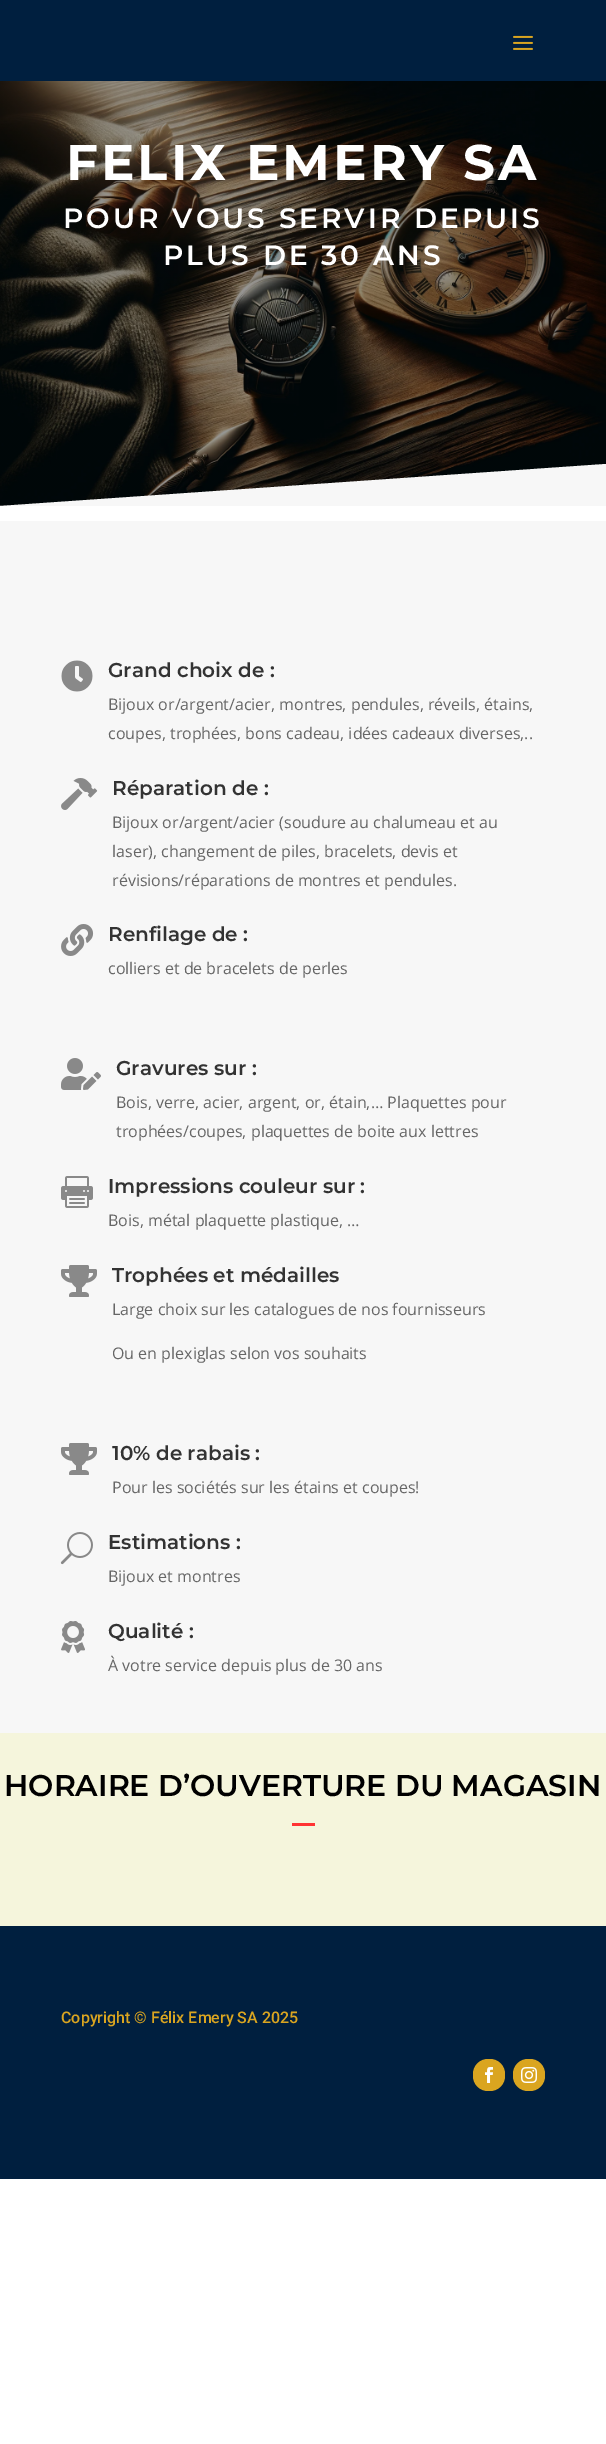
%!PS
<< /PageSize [606 2444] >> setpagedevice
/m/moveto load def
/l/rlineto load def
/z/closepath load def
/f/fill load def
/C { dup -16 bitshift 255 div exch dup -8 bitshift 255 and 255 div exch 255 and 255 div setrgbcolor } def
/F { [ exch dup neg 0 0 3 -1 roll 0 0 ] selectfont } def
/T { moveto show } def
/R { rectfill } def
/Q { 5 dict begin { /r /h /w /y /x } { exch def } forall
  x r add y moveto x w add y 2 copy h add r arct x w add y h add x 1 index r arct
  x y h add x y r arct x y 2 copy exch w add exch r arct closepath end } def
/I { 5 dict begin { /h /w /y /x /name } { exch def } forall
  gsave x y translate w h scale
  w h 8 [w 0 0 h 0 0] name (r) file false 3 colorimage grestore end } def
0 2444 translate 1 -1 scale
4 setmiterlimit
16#FFFFFF C
0 0 606 2444 R
16#001F3F C
0 0 606 81 R
(1.rgb) 513 35 20 15 I
(2.rgb) 0 81 606 425 I
/Montserrat-Bold 50 F
16#FFFFFF C
66 180 m 3 0 (FELIX EMERY SA) ashow
/Montserrat-SemiBold 28 F
63 228 m 3 0 (POUR VOUS SERVIR DEPUIS) ashow
163 265 m 3 0 (PLUS DE 30 ANS) ashow
16#F7F7F7 C
606 464 m 0 42 l -606 0 l z f
0 521 606 1212 R
(3.rgb) 61 660 32 32 I
/Montserrat-SemiBold 20 F
16#333333 C
(Grand choix de :) 108 677 T
/OpenSans-Regular 16 F
16#666666 C
(Bijoux or/argent/acier, montres, pendules, réveils, étains,) 108 710 T
(coupes, trophées, bons cadeau, idées cadeaux diverses,..) 108 739 T
(4.rgb) 61 778 37 32 I
/Montserrat-SemiBold 20 F
16#333333 C
(Réparation de :) 112 795 T
/OpenSans-Regular 16 F
16#666666 C
(Bijoux or/argent/acier \(soudure au chalumeau et au) 112 828 T
(laser\), changement de piles, bracelets, devis et) 112 857 T
(révisions/réparations de montres et pendules.) 112 886 T
(5.rgb) 61 924 33 32 I
/Montserrat-SemiBold 20 F
16#333333 C
(Renfilage de :) 108 941 T
/OpenSans-Regular 16 F
16#666666 C
(colliers et de bracelets de perles) 108 974 T
(6.rgb) 61 1058 40 32 I
/Montserrat-SemiBold 20 F
16#333333 C
(Gravures sur :) 116 1075 T
/OpenSans-Regular 16 F
16#666666 C
(Bois, verre, acier, argent, or, étain,… Plaquettes pour) 116 1108 T
(trophées/coupes, plaquettes de boite aux lettres) 116 1137 T
(7.rgb) 61 1176 32 32 I
/Montserrat-SemiBold 20 F
16#333333 C
(Impressions couleur sur :) 108 1193 T
/OpenSans-Regular 16 F
16#666666 C
(Bois, métal plaquette plastique, …) 108 1226 T
(8.rgb) 61 1265 36 32 I
/Montserrat-SemiBold 20 F
16#333333 C
(Trophées et médailles) 112 1282 T
/OpenSans-Regular 16 F
16#666666 C
(Large choix sur les catalogues de nos fournisseurs) 112 1315 T
(Ou en plexiglas selon vos souhaits) 112 1359 T
(8.rgb) 61 1443 36 32 I
/Montserrat-SemiBold 20 F
16#333333 C
(10% de rabais :) 112 1460 T
/OpenSans-Regular 16 F
16#666666 C
(Pour les sociétés sur les étains et coupes!) 112 1493 T
(9.rgb) 60 1532 33 33 I
/Montserrat-SemiBold 20 F
16#333333 C
(Estimations :) 108 1549 T
/OpenSans-Regular 16 F
16#666666 C
(Bijoux et montres) 108 1582 T
(10.rgb) 61 1621 24 32 I
/Montserrat-SemiBold 20 F
16#333333 C
(Qualité :) 108 1638 T
/OpenSans-Regular 16 F
16#666666 C
(À votre service depuis plus de 30 ans) 108 1671 T
16#F5F5DC C
0 1733 606 193 R
/Montserrat-SemiBold 30 F
16#000000 C
(HORAIRE D’OUVERTURE DU MAGASIN) 4 1796 T
16#FF3333 C
292 1823 23 3 R
16#001F3F C
0 1926 606 253 R
/Roboto-Medium 16 F
16#DAA520 C
(Copyright © Félix Emery SA 2025) 61 2023 T
473 2059 32 32 15 Q f
(11.rgb) 485 2067 8 16 I
513 2059 32 32 15 Q f
(12.rgb) 521 2067 16 16 I
showpage
